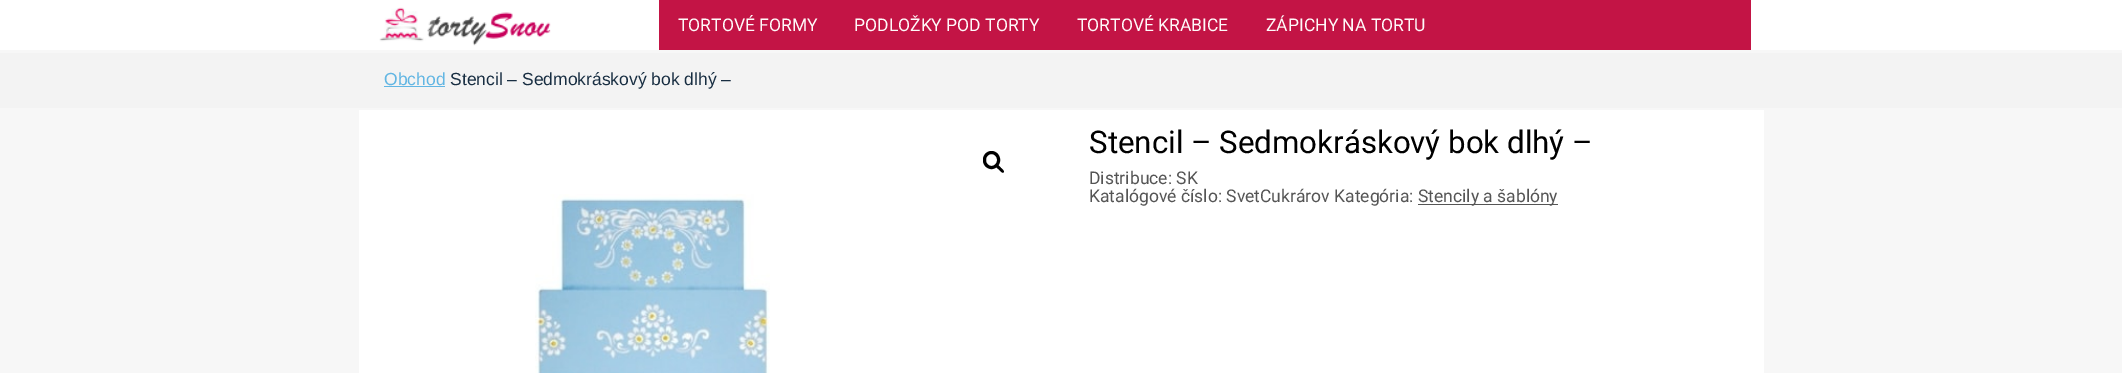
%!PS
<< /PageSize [2122 373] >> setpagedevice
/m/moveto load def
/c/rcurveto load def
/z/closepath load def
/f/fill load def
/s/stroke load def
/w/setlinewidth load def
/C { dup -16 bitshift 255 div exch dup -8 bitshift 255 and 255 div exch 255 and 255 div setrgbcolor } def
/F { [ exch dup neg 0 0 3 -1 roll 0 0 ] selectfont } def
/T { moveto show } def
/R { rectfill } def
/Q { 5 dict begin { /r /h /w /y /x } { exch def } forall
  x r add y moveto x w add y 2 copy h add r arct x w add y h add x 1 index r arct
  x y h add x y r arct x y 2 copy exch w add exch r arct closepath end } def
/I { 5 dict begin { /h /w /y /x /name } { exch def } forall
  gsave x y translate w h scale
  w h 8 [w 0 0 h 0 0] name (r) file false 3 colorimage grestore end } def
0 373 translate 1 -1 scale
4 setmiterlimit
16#F7F7F7 C
0 0 2122 373 R
16#FFFFFF C
0 0 2122 50 R
(1.rgb) 379 7 172 39 I
16#C31445 C
659 0 1092 50 R
/Roboto-Regular 17.5 F
16#FFFAFA C
(TORTOVÉ FORMY) 678 31 T
(PODLOŽKY POD TORTY) 854 31 T
(TORTOVÉ KRABICE) 1077 31 T
(ZÁPICHY NA TORTU) 1266 31 T
16#F3F3F3 C
0 53 2122 55 R
/LiberationSans-Regular 17.5 F
16#62B6E3 C
(Obchod) 384 85 T
384 86 61 1 R
16#182E42 C
(Stencil – Sedmokráskový bok dlhý –) 450 85 T
16#FFFFFF C
359 110 1405 263 R
16#000000 C
3 w
984.5 152.5 14 15 7 Q s
996.5 165 m 1.5 -1 3.5 2 4.5 3 c .5 .5 4 3 2.5 4.5 c -1.5 1 -3.5 -2 -4.5 -3 c -1 -.5 -4 -3 -2.5 -4.5 c z f
(2.rgb) 535 194 235 179 I
/Roboto-Regular 31.25 F
(Stencil – Sedmokráskový bok dlhý –) 1089 153 T
/Roboto-Regular 17.5 F
16#555555 C
(Distribuce: SK) 1089 184 T
(Katalógové číslo: SvetCukrárov Kategória:) 1089 202 T
1418 204 140 1 R
(Stencily a šablóny) 1418 202 T
showpage
